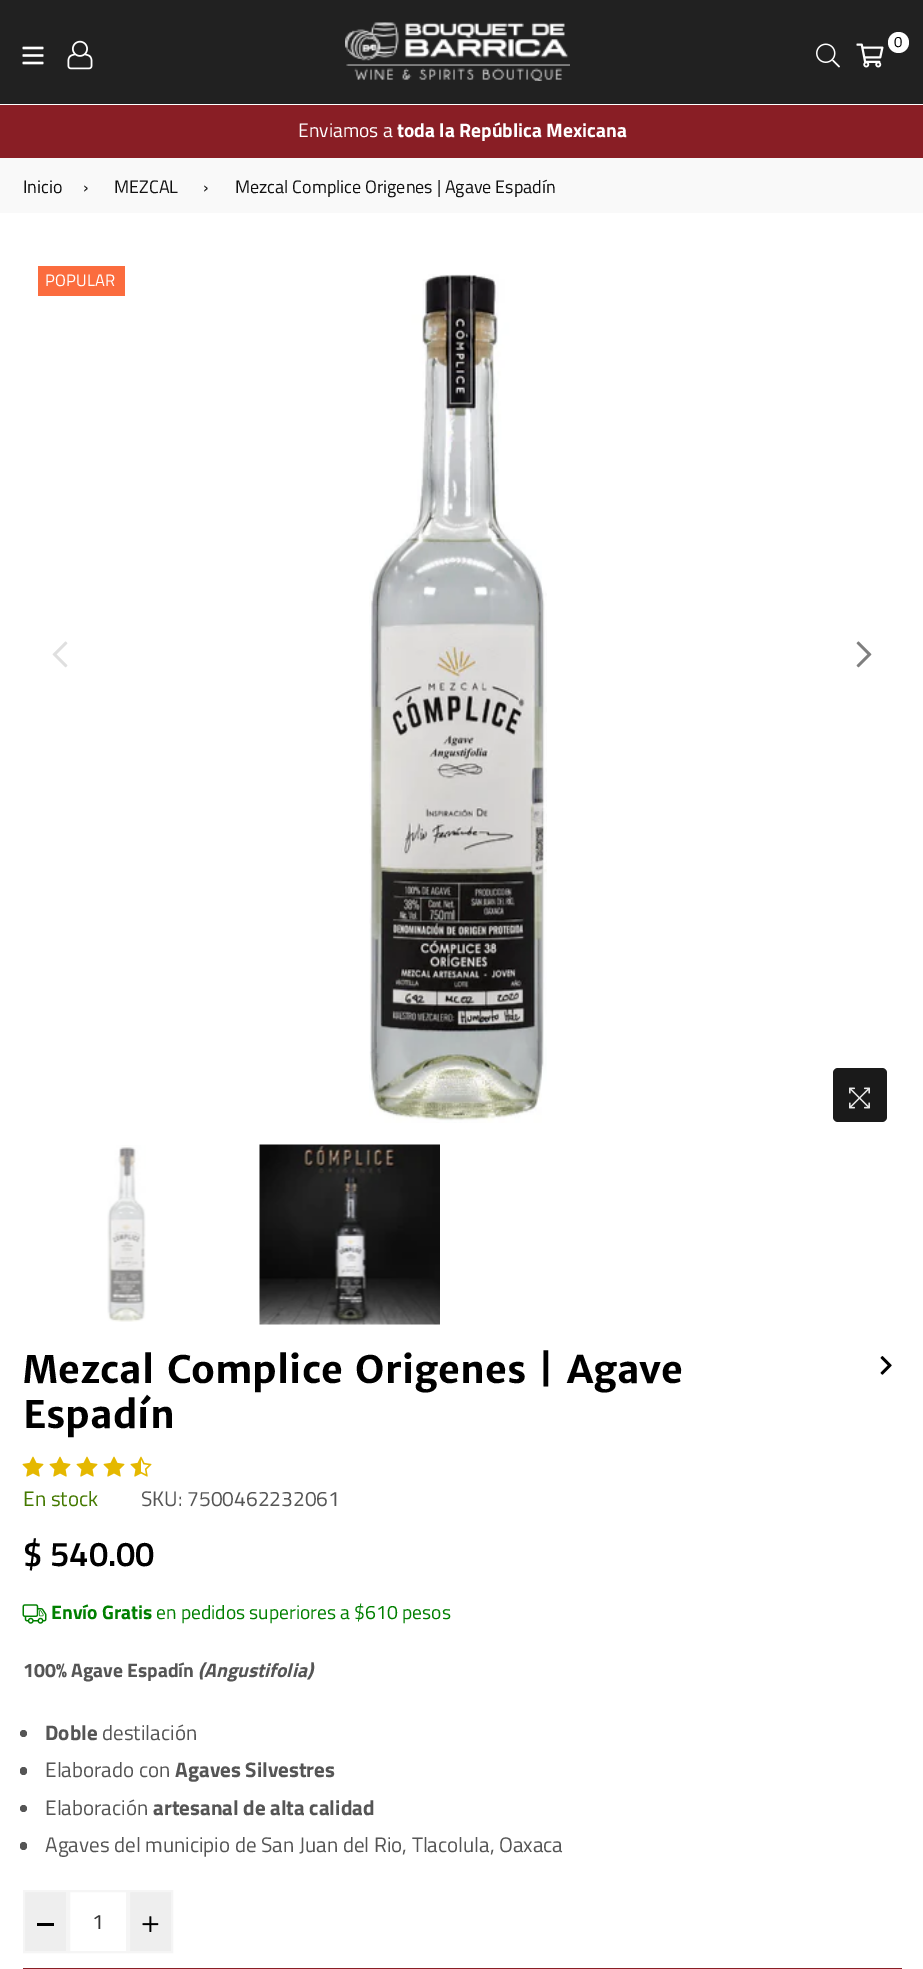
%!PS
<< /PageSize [923 1969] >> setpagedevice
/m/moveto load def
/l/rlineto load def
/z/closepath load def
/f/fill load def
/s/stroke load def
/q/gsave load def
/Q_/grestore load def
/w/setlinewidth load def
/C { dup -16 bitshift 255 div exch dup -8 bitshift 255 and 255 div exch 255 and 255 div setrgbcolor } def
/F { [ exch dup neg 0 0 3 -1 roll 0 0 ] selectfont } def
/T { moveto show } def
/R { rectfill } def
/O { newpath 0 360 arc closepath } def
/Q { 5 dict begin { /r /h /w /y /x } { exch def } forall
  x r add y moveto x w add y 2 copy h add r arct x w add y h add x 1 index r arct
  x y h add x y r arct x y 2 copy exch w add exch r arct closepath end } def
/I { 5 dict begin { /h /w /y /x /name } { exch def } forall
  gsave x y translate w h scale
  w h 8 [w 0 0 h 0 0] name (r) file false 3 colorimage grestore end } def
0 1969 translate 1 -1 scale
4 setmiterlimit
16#FFFFFF C
0 0 923 1969 R
16#212121 C
0 0 923 104 R
(1.rgb) 22 46 22 19 I
(2.rgb) 67 40 26 30 I
(3.rgb) 345 22 225 59 I
(4.rgb) 816 43 24 25 I
(5.rgb) 856 43 28 25 I
16#FFFFFF C
898.5 42.5 10.5 O f
/TitilliumWeb-Regular 15 F
16#000000 C
(0) 894 47 T
16#891E25 C
0 105 923 53 R
/TitilliumWeb-Regular 19.5 F
16#FFFFFF C
(Enviamos a) 298 137 T
/TitilliumWeb-Bold 19.5 F
(toda la República Mexicana) 397 137 T
16#F9F9F9 C
0 158 923 55 R
/TitilliumWeb-Regular 18 F
16#111111 C
(Inicio) 23 193 T
(›) 83 193 T
(MEZCAL) 114 193 T
(›) 203 193 T
(Mezcal Complice Origenes | Agave Espadín) 235 193 T
16#FB6C3E C
38 266 87 30 R
/TitilliumWeb-Regular 16.5 F
16#FFFFFF C
45 286 m .25 0 (POPULAR) ashow
(6.rgb) 52 641 16 27 I
(7.rgb) 369 274 178 849 I
(8.rgb) 856 641 16 27 I
16#1A1A1A C
833 1068 54 54 5 Q f
(9.rgb) 849 1087 21 22 I
(10.rgb) 107 1145 39 177 I
(11.rgb) 259 1144 181 181 I
/MerriweatherSans-Bold 37.75 F
16#000000 C
(Mezcal Complice Origenes | Agave) 23 1383 T
(Espadín) 23 1428 T
(12.rgb) 880 1356 12 19 I
(13.rgb) 22 1456 22 21 I
(13.rgb) 49 1456 22 21 I
(13.rgb) 76 1456 22 21 I
(13.rgb) 103 1456 22 21 I
(14.rgb) 130 1456 22 21 I
/TitilliumWeb-Regular 21 F
16#447900 C
(En stock) 23 1506 T
16#555555 C
(SKU: 7500462232061) 141 1506 T
/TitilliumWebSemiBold-SemiBold 34.5 F
16#000000 C
($ 540.00) 23 1566 T
(15.rgb) 22 1604 25 20 I
/TitilliumWeb-Bold 19.5 F
16#008000 C
(Envío Gratis) 51 1619 T
/TitilliumWeb-Regular 19.5 F
(en pedidos superiores a $610 pesos) 156 1619 T
/TitilliumWeb-Bold 19.5 F
16#555555 C
(100% Agave Espadín) 23 1677 T
/TitilliumWeb-BoldItalic 19.5 F
(\(Angustifolia\)) 198 1677 T
23.5 1733.5 3.5 O f
/TitilliumWeb-Bold 21 F
(Doble) 45 1740 T
/TitilliumWeb-Regular 21 F
(destilación) 102 1740 T
20 1767 7 8 3.5 Q f
(Elaborado con) 45 1777 T
/TitilliumWeb-Bold 21 F
(Agaves Silvestres) 175 1777 T
23.5 1808.5 3.5 O f
/TitilliumWeb-Regular 21 F
(Elaboración) 45 1815 T
/TitilliumWeb-Bold 21 F
(artesanal de alta calidad) 153 1815 T
20 1842 7 8 3.5 Q f
/TitilliumWeb-Regular 21 F
(Agaves del municipio de San Juan del Rio, Tlacolula, Oaxaca) 45 1852 T
16#EEEEEE C
24 1891 m 43 0 l 0 61 l -43 0 l z q f Q_
16#F5F5F5 C
2 w
s
16#000000 C
37 1923 17 3 R
16#F5F5F5 C
69 1891 58 61 rectstroke
16#333333 C
(1) 92 1929 T
16#EEEEEE C
129 1891 m 43 0 l 0 61 l -43 0 l z q f Q_
16#F5F5F5 C
s
(16.rgb) 142 1916 17 16 I
16#891E25 C
23 1968 879 1 R
showpage
